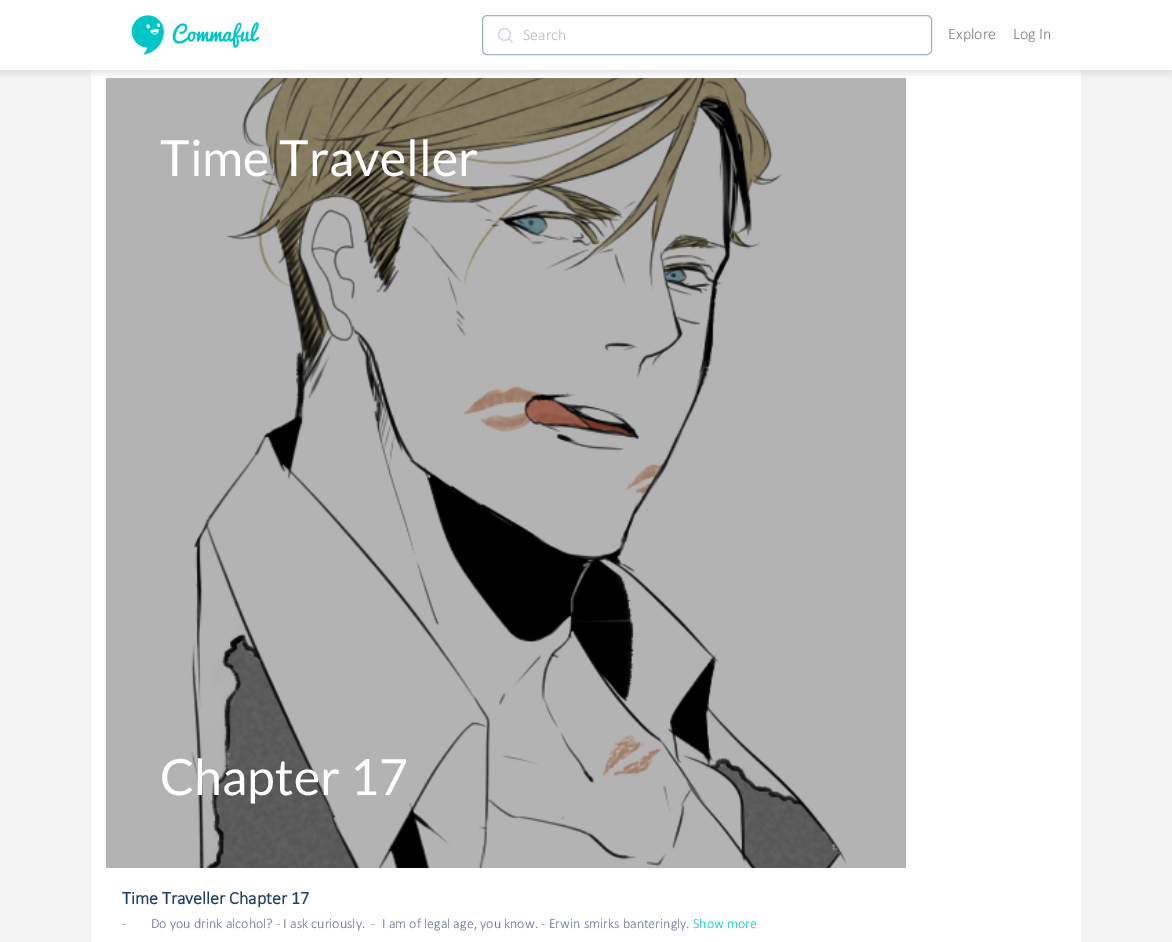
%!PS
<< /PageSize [1172 942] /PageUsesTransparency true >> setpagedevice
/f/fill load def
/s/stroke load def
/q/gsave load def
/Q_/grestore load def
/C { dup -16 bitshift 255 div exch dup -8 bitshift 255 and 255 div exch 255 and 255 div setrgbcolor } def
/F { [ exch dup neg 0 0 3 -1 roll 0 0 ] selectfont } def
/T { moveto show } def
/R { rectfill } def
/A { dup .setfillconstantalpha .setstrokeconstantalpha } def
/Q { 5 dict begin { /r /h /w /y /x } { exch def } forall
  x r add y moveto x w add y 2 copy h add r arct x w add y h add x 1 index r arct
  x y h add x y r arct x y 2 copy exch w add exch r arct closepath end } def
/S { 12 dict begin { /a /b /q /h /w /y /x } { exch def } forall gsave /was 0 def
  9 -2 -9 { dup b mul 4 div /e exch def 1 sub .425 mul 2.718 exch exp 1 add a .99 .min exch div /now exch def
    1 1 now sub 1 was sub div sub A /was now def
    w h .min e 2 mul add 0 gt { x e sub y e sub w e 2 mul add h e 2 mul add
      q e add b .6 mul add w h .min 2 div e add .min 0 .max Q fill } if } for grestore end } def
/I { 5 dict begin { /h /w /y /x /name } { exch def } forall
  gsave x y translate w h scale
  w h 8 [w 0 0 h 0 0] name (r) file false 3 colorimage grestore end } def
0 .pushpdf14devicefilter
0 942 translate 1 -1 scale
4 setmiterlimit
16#FFFFFF C
0 0 1172 942 R
16#F3F3F3 C
0 70 1172 872 R
16#FFFFFF C
91 70 990 872 R
(3.rgb) 106 78 800 790 I
q
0 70 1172 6 rectclip
16#214163 C
0 2 1172 70 0 5 .1 S
Q_
q
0 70 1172 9 rectclip
16#DCDCDC C
0 0 1172 70 0 4.5 1 S
Q_
(1.rgb) 131 15 129 40 I
(2.rgb) 498 28 15 15 I
0.5 A
482.5 15.5 449 39 4.5 Q f
1 A
16#A4B1BF C
482.5 15.5 449 39 4.5 Q s
/Calibri-Light 16 F
16#BABABA C
(Search) 523 40 T
16#808080 C
(Explore) 948 39 T
(Log In) 1013 39 T
/Lato-Regular 50 F
16#FFFFFF C
(Time Traveller) 160 176 T
(Chapter 17) 160 795 T
/Calibri-Bold 18 F
16#214163 C
(Time Traveller Chapter 17) 122 904 T
/Calibri-Light 14 F
16#677294 C
(-) 122 928 T
(Do you drink alcohol? - I ask curiously.  -) 151 928 T
(I am of legal age, you know. - Erwin smirks banteringly.) 382 928 T
16#00C6C6 C
(Show more) 693 928 T
.poppdf14devicefilter showpage
